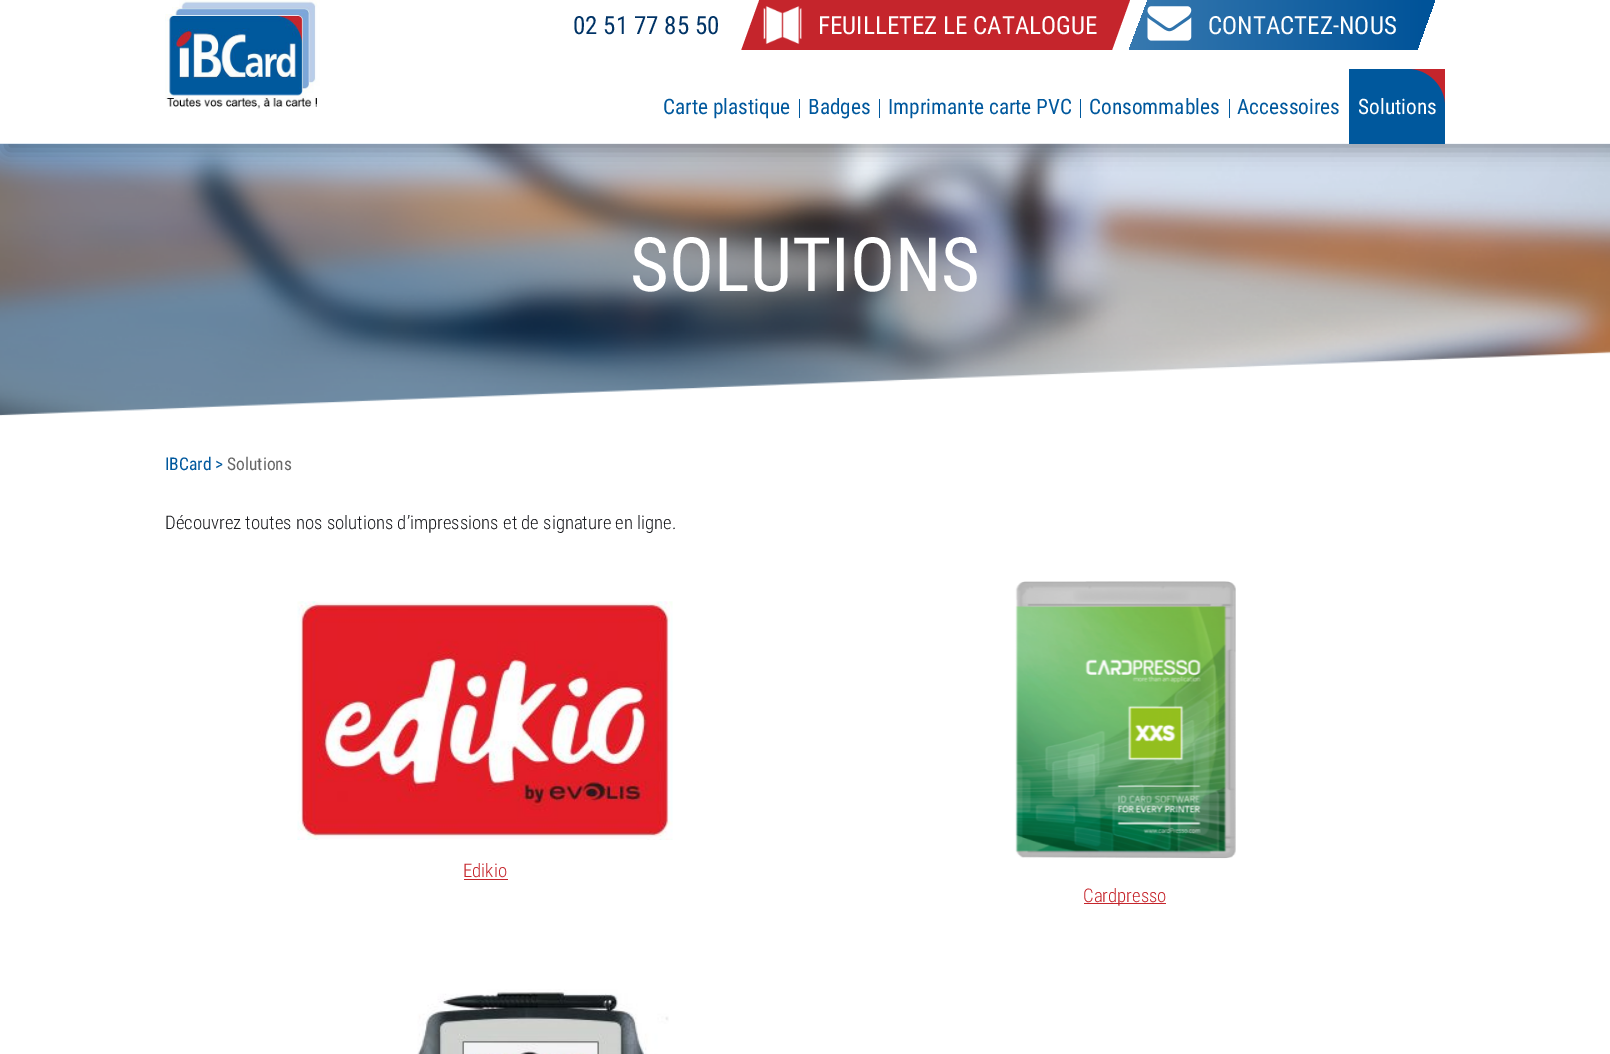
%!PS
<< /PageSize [1610 1054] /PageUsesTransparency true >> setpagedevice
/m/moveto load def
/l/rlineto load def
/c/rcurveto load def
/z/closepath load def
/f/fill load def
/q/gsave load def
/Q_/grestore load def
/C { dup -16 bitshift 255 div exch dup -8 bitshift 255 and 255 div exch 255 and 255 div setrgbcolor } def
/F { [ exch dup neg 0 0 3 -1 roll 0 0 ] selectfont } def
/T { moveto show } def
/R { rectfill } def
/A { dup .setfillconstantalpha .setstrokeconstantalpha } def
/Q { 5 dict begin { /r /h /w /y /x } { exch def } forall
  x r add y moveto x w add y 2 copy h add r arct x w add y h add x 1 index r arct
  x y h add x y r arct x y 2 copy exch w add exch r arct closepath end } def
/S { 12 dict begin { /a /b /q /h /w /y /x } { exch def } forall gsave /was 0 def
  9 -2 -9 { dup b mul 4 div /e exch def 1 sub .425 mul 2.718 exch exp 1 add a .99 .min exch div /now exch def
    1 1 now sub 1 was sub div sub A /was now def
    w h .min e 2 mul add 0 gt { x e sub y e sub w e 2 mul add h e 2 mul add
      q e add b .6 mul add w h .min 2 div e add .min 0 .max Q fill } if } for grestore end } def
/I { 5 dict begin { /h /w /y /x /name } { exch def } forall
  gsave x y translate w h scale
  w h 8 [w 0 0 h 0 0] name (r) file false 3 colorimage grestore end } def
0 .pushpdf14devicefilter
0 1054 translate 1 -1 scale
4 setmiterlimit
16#FFFFFF C
0 0 1610 1054 R
(4.rgb) 0 143 1610 273 I
q
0 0 m 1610 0 l 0 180 l -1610 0 l z 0 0 m 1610 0 l 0 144 l -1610 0 l z eoclip newpath
16#000000 C
6 6 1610 144 0 9.5 .3 S
Q_
(1.rgb) 165 0 155 109 I
16#C5252C C
748 0 m 382 0 l -18 50 l -383 0 l z f
741 0 7 19 R
16#FFFFFF C
564 0 m 195 0 l -18 50 l -195 0 l z f
/RobotoCondensed-Regular 25 F
16#003366 C
(02 51 77 85 50) 573 34 T
(2.rgb) 763 6 39 38 I
16#FFFFFF C
(FEUILLETEZ LE CATALOGUE) 818 34 T
q 1148 0 m 287 0 l -18 50 l -288 0 l z clip newpath
<< /ShadingType 2 /ColorSpace /DeviceRGB /Coords [1138 25 1426 25] /Extend [true true] /Function << /FunctionType 2 /Domain [0 1] /C0 [.212 .471 .686] /C1 [0 .325 .6] /N 1 >> >> shfill Q_
(3.rgb) 1147 6 45 35 I
(CONTACTEZ-NOUS) 1208 34 T
/RobotoCondensed-Regular 21.25 F
16#00589D C
(Carte plastique) 663 114 T
799 99 1 19 R
(Badges) 808 114 T
879 99 1 19 R
(Imprimante carte PVC) 888 114 T
1080 99 1 19 R
(Consommables) 1089 114 T
1229 99 1 19 R
(Accessoires) 1237 114 T
16#C5252C C
1408 69 37 38 R
16#00589D C
1349 69 m 58.5 0 l 20.5 0 37.5 17 37.5 37.5 c 0 37.5 l -96 0 l z f
16#FFFFFF C
(Solutions) 1358 114 T
/RobotoCondensed-Regular 75 F
(SOLUTIONS) 630 291 T
/RobotoCondensed-Regular 17.5 F
16#00589D C
(IBCard >) 165 470 T
16#666666 C
(Solutions) 227 470 T
/RobotoCondensed-Light 18.75 F
16#1B1C20 C
(Découvrez toutes nos solutions d’impressions et de signature en ligne.) 165 529 T
(5.rgb) 297 601 376 239 I
16#C5252C C
(Edikio) 463 877 T
464 879 44 1 R
(6.rgb) 1015 581 221 278 I
1084 903 82 1 R
(Cardpresso) 1083 902 T
(7.rgb) 417 989 252 65 I
.poppdf14devicefilter showpage
